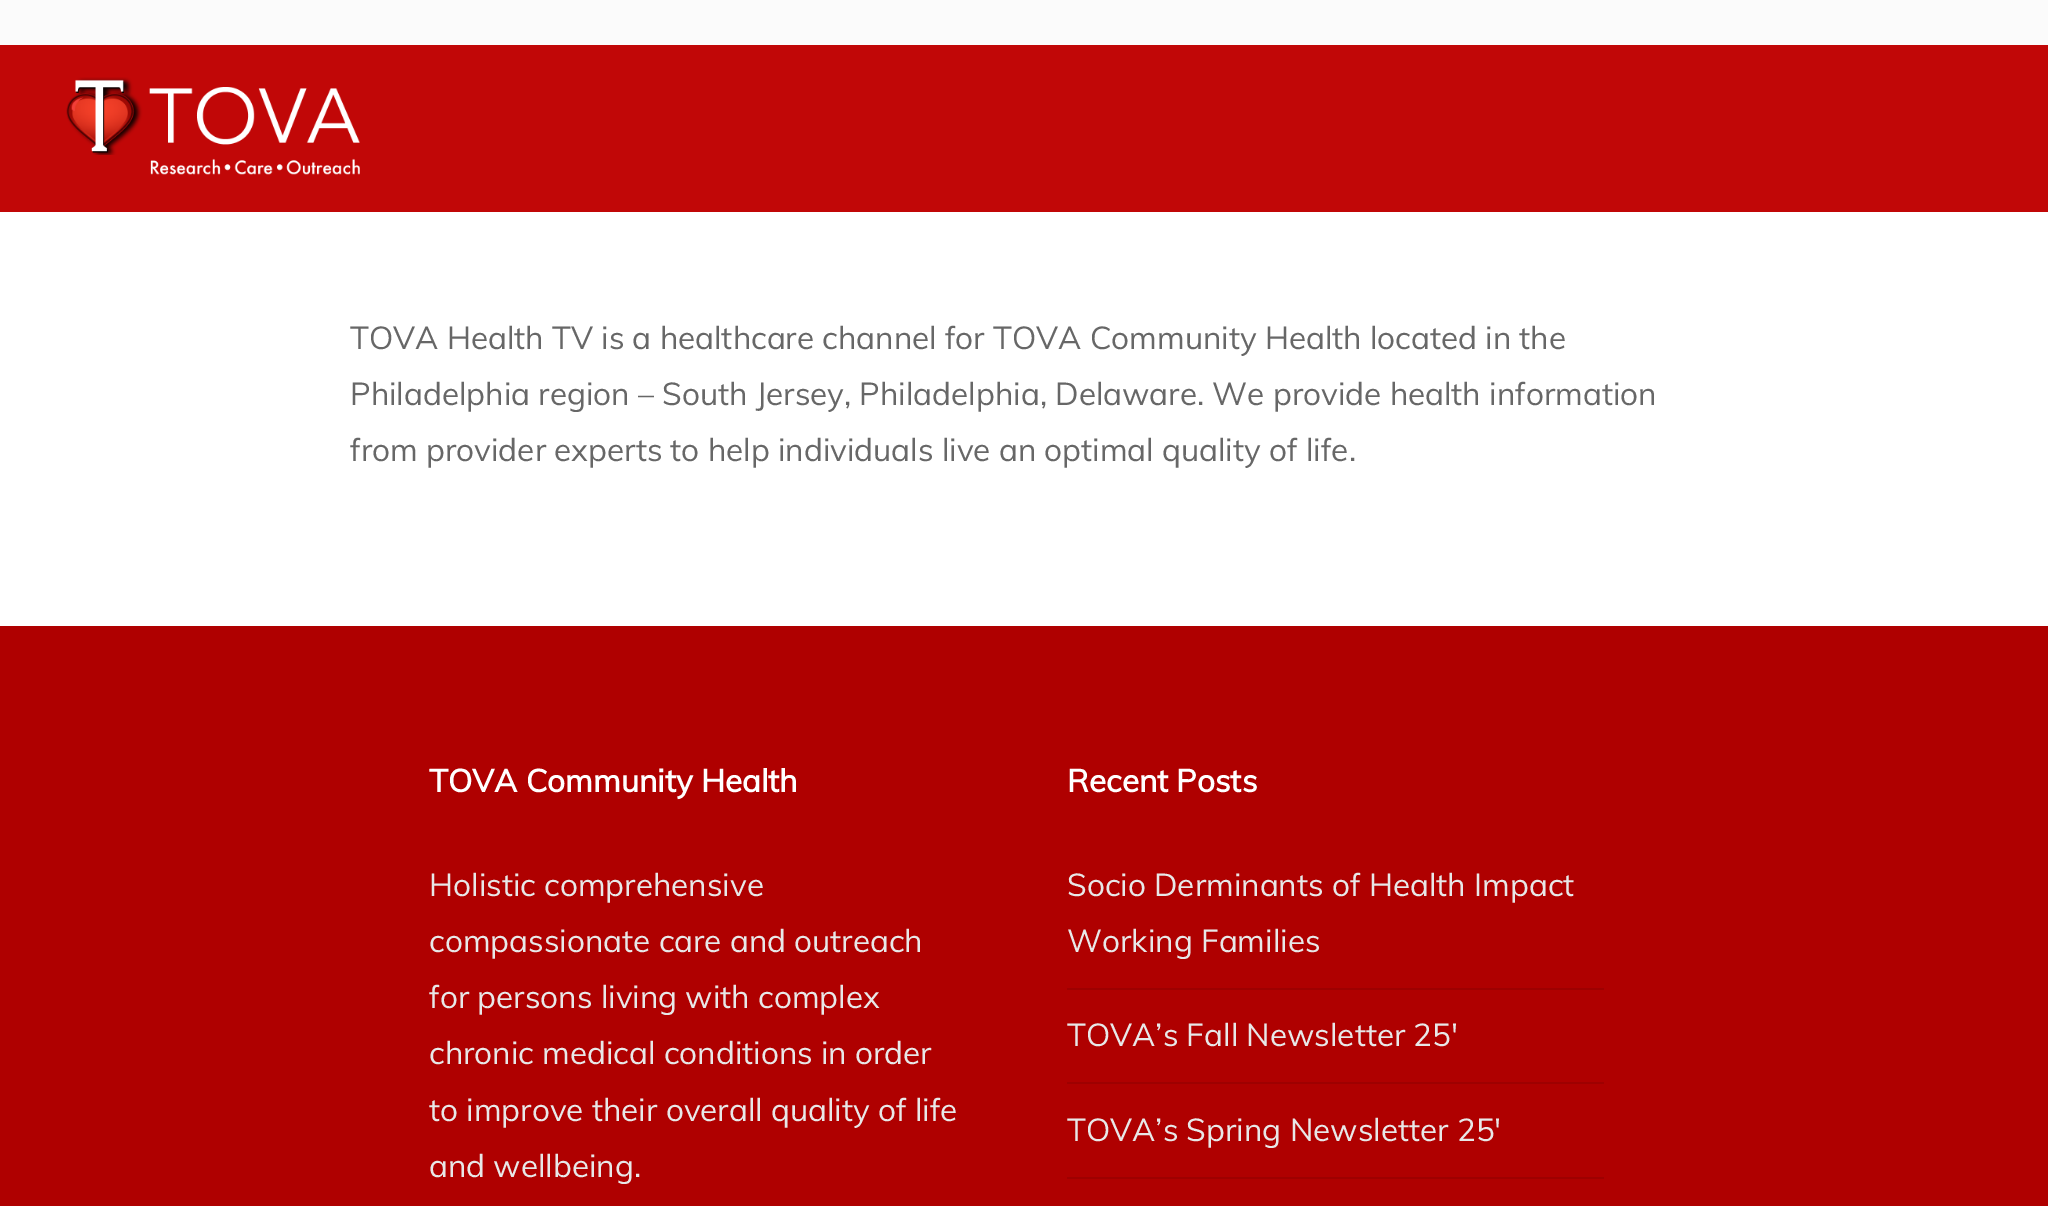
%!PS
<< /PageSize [2048 1206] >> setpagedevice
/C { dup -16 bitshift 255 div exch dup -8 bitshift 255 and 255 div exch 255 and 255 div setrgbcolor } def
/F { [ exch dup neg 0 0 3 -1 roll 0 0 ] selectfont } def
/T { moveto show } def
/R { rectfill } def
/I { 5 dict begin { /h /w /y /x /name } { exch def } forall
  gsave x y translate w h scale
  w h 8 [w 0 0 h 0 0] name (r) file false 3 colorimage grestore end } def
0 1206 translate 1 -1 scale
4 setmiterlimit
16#FFFFFF C
0 0 2048 1206 R
16#FBFBFB C
0 0 2048 45 R
16#C10707 C
0 45 2048 167 R
(1.rgb) 66 77 294 98 I
/Muli-Regular 31.5 F
16#676767 C
(TOVA Health TV is a healthcare channel for TOVA Community Health located in the) 350 349 T
(Philadelphia region – South Jersey, Philadelphia, Delaware. We provide health information) 350 405 T
(from provider experts to help individuals live an optimal quality of life.) 350 461 T
16#AF0000 C
0 626 2048 580 R
/Muli-Bold 31.5 F
16#FFFFFF C
(TOVA Community Health) 429 792 T
/Muli-Regular 31.5 F
16#E8E8E8 C
(Holistic comprehensive) 429 896 T
(compassionate care and outreach) 429 952 T
(for persons living with complex) 429 1008 T
(chronic medical conditions in order) 429 1064 T
(to improve their overall quality of life) 429 1121 T
(and wellbeing.) 429 1177 T
/Muli-Bold 31.5 F
16#FFFFFF C
(Recent Posts) 1067 792 T
16#9E0000 C
1067 988 537 2 R
/Muli-Regular 31.5 F
16#E8E8E8 C
(Socio Derminants of Health Impact) 1067 896 T
(Working Families) 1067 952 T
16#9E0000 C
1067 1082 537 2 R
16#E8E8E8 C
(TOVA’s Fall Newsletter 25′) 1067 1046 T
16#9E0000 C
1067 1177 537 2 R
16#E8E8E8 C
(TOVA’s Spring Newsletter 25′) 1067 1141 T
showpage
